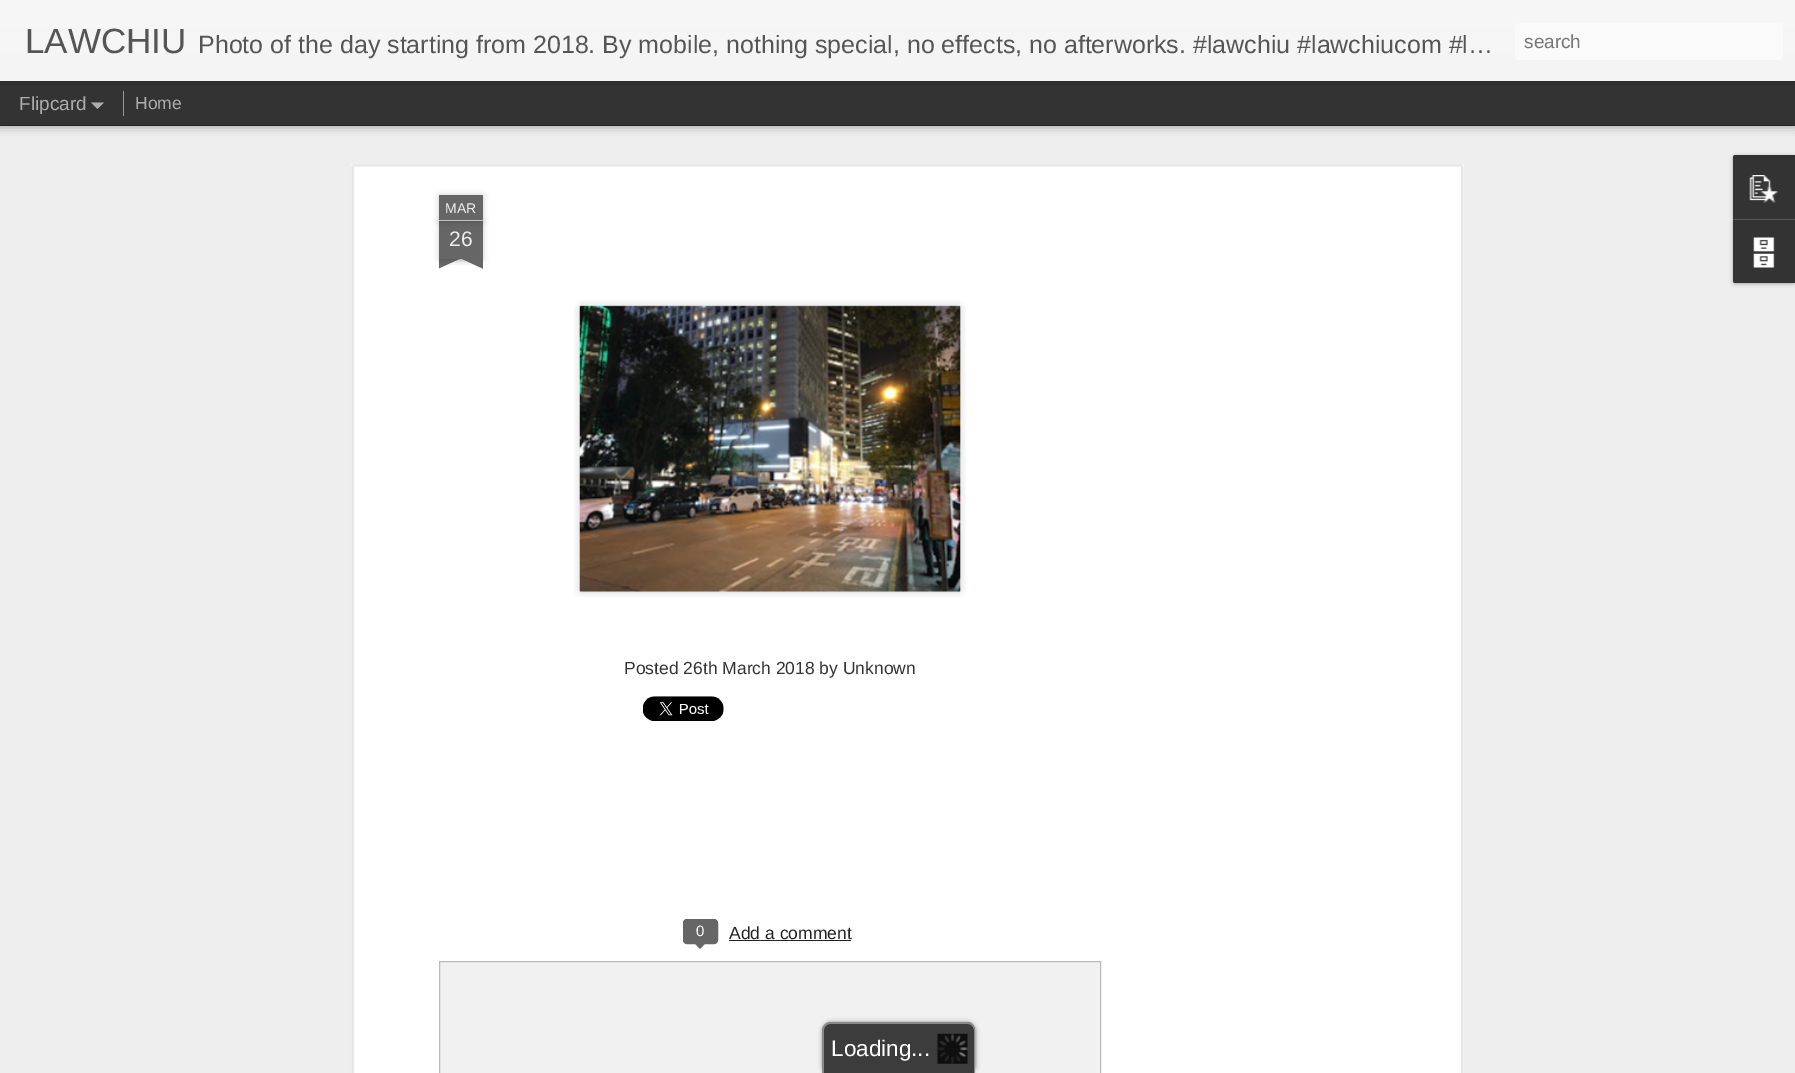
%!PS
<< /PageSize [1795 1073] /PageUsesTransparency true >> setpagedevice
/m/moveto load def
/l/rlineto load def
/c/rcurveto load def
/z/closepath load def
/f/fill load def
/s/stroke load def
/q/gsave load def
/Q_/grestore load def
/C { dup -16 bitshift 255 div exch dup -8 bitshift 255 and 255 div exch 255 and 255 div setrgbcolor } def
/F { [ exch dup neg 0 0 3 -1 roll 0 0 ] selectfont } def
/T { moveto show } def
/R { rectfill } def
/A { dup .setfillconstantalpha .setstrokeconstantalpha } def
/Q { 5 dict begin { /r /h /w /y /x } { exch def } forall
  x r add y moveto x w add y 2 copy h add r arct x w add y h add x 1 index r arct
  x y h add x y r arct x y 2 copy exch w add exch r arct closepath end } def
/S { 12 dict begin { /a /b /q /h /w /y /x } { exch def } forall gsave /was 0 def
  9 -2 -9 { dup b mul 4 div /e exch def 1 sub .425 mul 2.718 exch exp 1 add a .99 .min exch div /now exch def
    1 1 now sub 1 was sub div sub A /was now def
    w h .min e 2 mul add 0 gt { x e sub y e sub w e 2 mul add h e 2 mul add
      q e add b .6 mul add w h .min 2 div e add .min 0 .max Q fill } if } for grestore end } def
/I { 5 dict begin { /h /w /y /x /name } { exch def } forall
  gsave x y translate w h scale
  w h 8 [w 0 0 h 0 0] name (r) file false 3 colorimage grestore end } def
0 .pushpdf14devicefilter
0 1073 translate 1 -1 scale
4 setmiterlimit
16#333333 C
0 0 1795 1073 R
16#EEEEEE C
0 126 1795 947 R
16#000000 C
0 81 1795 44 0 5 .5 S
16#333333 C
0 81 1795 44 R
16#000000 C
0 0 1795 81 0 3 .3 S
q 0 0 m 1795 0 l 0 81 l -1795 0 l z clip newpath
<< /ShadingType 2 /ColorSpace /DeviceRGB /Coords [0 0 0 81] /Extend [true true] /Function << /FunctionType 2 /Domain [0 1] /C0 [.969 .969 .969] /C1 [.957 .957 .957] /N 1 >> >> shfill Q_
/LiberationSans-Regular 35 F
16#555555 C
(LAWCHIU) 25 53 T
/LiberationSans-Regular 25 F
(Photo of the day starting from 2018. By mobile, nothing special, no effects, no afterworks. #lawchiu #lawchiucom #l…) 198 53 T
16#FAFAFA C
1515 23 268 37 4 Q f
/LiberationSans-Regular 19 F
16#757575 C
(search) 1524 48 T
16#ADADAD C
(Flipcard) 19 110 T
91 102.5 m 13 0 l -6.5 6.5 l z f
16#999999 C
123 91 1 25 R
/LiberationSans-Regular 17.5 F
16#ADADAD C
(Home) 135 109 T
16#FFFFFF C
351 164 1113 909 R
(1.rgb) 351 164 1113 909 I
16#000000 C
439 221 44 38 0 3 .2 S
16#666666 C
439 221 44 38 R
16#000000 C
439 195 44 26 1 3 .2 S
16#666666 C
440 195 m 42 0 l .5 0 1 .5 1 1 c 0 25 l -44 0 l 0 -25 l 0 -.5 .5 -1 1 -1 c z f
16#C2C2C2 C
439 220 44 1 R
/LiberationSans-Regular 14 F
16#EEEEEE C
(MAR) 445 213 T
/LiberationSans-Regular 21 F
(26) 449 246 T
q
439 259 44 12 rectclip
16#000000 C
428 246 62 13 0 3 .2 S
Q_
q
439 259 44 12 rectclip
16#666666 C
428 260 m 56 -26 l 6 11 l -57 26 l z f
Q_
q
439 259 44 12 rectclip
16#000000 C
431 246 63 13 0 3 .2 S
Q_
q
439 259 44 12 rectclip
16#666666 C
437 234 m 56 26 l -5 11 l -56 -26 l z f
Q_
(2.rgb) 574 300 392 297 I
(3.rgb) 579 305 382 288 I
/LiberationSans-Regular 17.5 F
16#333333 C
(Posted 26th March 2018 by Unknown) 624 674 T
(4.rgb) 643 696 81 25 I
16#666666 C
683.5 919.5 34 24 3.5 Q q f Q_
s
/LiberationSans-Regular 15 F
16#FFFFFF C
(0) 696 936 T
16#666666 C
694 942.5 m 12 0 l -6 6.5 l z f
/LiberationSans-Regular 17.5 F
16#222222 C
(Add a comment) 729 939 T
729 940 122 1 R
16#F1F1F1 C
439.5 961.5 m 661 0 l 0 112 l -661 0 l z q f Q_
16#BBBBBB C
s
16#000000 C
1733 156 62 128 2.5 2 .3 S
16#333333 C
1735.5 155 m 59.5 0 l 0 64 l -62 0 l 0 -61.5 l 0 -1.5 1 -2.5 2.5 -2.5 c z f
(5.rgb) 1749 175 29 28 I
1733 219 m 62 0 l 0 64 l -59.5 0 l -1.5 0 -2.5 -1 -2.5 -2.5 c z f
16#585858 C
1733 219 62 1 R
(6.rgb) 1753 237 22 31 I
16#636363 C
823 1023 152 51 8 2.5 1 S
16#3C3C3C C
831 1023 m 136 0 l 4.5 0 8 3.5 8 8 c 0 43 l -152 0 l 0 -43 l 0 -4.5 3.5 -8 8 -8 c z f
16#898989 C
830 1022 m 138 0 l 4 0 7 4 7 8 c 0 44 l -153 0 l 0 -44 l 0 -4 4 -8 8 -8 c z 830 1024 m 138 0 l 3 0 6 3 6 6 c 0 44 l -150 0 l 0 -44 l 0 -3 3 -6 6 -6 c z eofill
(7.rgb) 937 1033 31 31 I
/LiberationSans-Regular 22.5 F
16#FFFFFF C
(Loading...) 831 1056 T
.poppdf14devicefilter showpage
